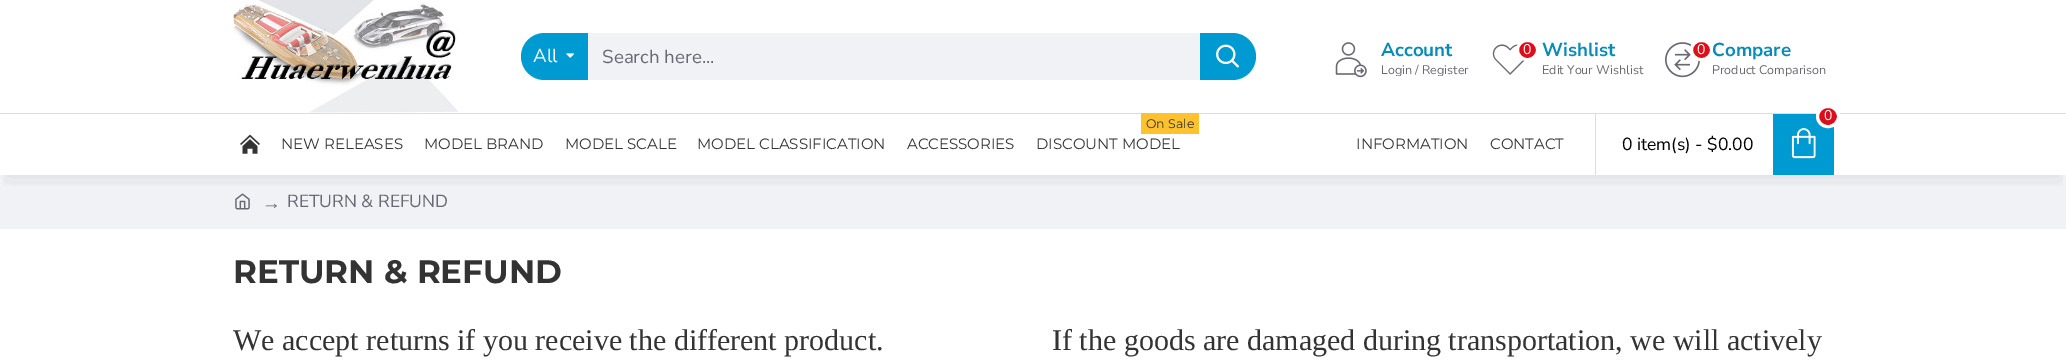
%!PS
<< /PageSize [2066 363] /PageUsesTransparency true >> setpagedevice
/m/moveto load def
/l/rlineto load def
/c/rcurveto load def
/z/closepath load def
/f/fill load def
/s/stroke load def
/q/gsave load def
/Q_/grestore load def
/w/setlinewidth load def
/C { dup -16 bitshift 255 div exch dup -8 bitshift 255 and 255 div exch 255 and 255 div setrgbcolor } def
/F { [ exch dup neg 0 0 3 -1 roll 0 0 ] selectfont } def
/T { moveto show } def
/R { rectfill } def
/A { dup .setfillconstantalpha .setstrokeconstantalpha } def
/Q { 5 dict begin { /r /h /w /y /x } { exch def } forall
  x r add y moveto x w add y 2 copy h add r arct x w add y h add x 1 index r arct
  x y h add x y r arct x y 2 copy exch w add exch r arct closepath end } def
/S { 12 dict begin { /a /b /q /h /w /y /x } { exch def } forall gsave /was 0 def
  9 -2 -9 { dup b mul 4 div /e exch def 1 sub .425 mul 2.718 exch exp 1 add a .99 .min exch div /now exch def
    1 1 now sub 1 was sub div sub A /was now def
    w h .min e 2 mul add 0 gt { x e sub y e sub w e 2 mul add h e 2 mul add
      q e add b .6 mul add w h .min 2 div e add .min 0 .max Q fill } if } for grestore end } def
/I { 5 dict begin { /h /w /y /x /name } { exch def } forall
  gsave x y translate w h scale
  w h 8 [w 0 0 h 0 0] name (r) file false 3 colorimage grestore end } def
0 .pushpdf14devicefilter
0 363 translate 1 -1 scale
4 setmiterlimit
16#FFFFFF C
0 0 2066 363 R
16#F0F2F5 C
0 175 2066 54 R
(9.rgb) 235 193 15 17 I
q
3 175 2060 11 rectclip
16#000000 C
6 13 2054 162 0 12.5 .1 S
Q_
(1.rgb) 233 0 226 113 I
16#009AD2 C
544.5 33 m 43.5 0 l 0 47 l -43.5 0 l -13 0 -23.5 -10.5 -23.5 -23.5 c 0 -13 10.5 -23.5 23.5 -23.5 c z f
/NunitoSans-Regular 18.75 F
16#FFFFFF C
(All) 533 62 T
(2.rgb) 566 53 9 5 I
16#F0F2F5 C
588 33 612 47 R
16#696973 C
(Search here...) 602 63 T
16#009AD2 C
1200 33 m 32.5 0 l 13 0 23.5 10.5 23.5 23.5 c 0 13 -10.5 23.5 -23.5 23.5 c -32.5 0 l z f
(3.rgb) 1216 44 23 24 I
(4.rgb) 1335 42 32 36 I
/NunitoSans-Bold 18.75 F
16#098BBA C
(Account) 1381 56 T
q
1381 36 88 40 rectclip
/NunitoSans-Regular 12.5 F
16#696973 C
(Login / Register) 1381 74 T
Q_
(5.rgb) 1492 44 33 31 I
16#DD0E1C C
1517.5 40.5 20 19 9.5 Q q f Q_
16#FFFFFF C
3 w
s
/NunitoSans-Regular 14 F
(0) 1523 54 T
/NunitoSans-Bold 18.75 F
16#098BBA C
(Wishlist) 1542 56 T
/NunitoSans-Regular 12.5 F
16#696973 C
(Edit Your Wishlist) 1542 74 T
(6.rgb) 1665 42 35 36 I
16#DD0E1C C
1691.5 40.5 20 19 9.5 Q q f Q_
16#FFFFFF C
s
/NunitoSans-Regular 14 F
(0) 1697 54 T
/NunitoSans-Bold 18.75 F
16#098BBA C
(Compare) 1712 56 T
/NunitoSans-Regular 12.5 F
16#696973 C
(Product Comparison) 1712 74 T
16#DDDDDD C
0 113 2066 1 R
1595 113 1 62 R
16#009AD2 C
1773 114 61 61 R
16#DD0E1C C
1817.5 106.5 21 20 10 Q q f Q_
16#FFFFFF C
s
/NunitoSans-Regular 14 F
(0) 1824 120 T
/NunitoSans-Regular 17.5 F
16#000000 C
(0 item\(s\) - $0.00) 1622 150 T
(7.rgb) 1791 128 25 31 I
(8.rgb) 240 134 20 20 I
/Montserrat-Regular 15 F
16#333333 C
(NEW RELEASES) 281 149 T
(MODEL BRAND) 424 149 T
(MODEL SCALE) 565 149 T
(MODEL CLASSIFICATION) 697 149 T
(ACCESSORIES) 907 149 T
16#FDC22D C
1141 113 58 21 R
/Montserrat-Regular 12.5 F
16#333333 C
(On Sale) 1146 128 T
/Montserrat-Regular 15 F
(DISCOUNT MODEL) 1036 149 T
(INFORMATION) 1356 149 T
(CONTACT) 1490 149 T
/LiberationSerif-Regular 18.75 F
16#696973 C
(→) 262 209 T
/NunitoSans-Regular 17.5 F
(RETURN & REFUND) 287 207 T
/Montserrat-Bold 32.5 F
16#333333 C
(RETURN & REFUND) 233 283 T
/LiberationSerif-Regular 30 F
(We accept returns if you receive the different product.) 233 350 T
(If the goods are damaged during transportation, we will actively) 1052 350 T
.poppdf14devicefilter showpage
